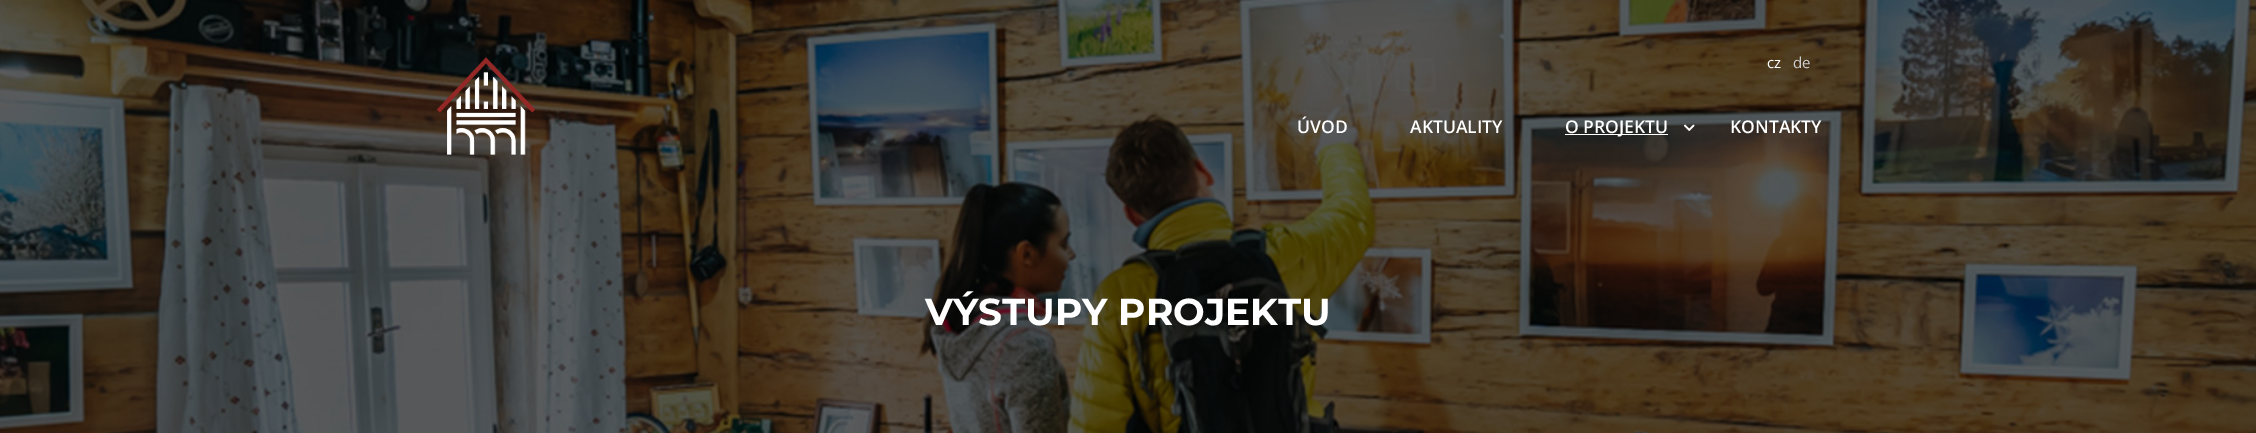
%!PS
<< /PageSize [2256 433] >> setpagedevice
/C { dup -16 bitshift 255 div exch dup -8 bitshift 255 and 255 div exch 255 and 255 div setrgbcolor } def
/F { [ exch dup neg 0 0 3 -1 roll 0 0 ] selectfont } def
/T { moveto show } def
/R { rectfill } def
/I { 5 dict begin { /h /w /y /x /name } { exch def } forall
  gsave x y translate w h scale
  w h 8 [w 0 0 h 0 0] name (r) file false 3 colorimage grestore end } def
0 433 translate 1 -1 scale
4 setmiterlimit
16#FFFFFF C
0 0 2256 433 R
(3.rgb) 0 0 2256 433 I
(1.rgb) 436 57 99 98 I
/OpenSans-Regular 15 F
(cz) 1767 68 T
16#CFCFCF C
(de) 1793 68 T
/OpenSans-SemiBold 17.5 F
16#FFFFFF C
(ÚVOD) 1297 133 T
(AKTUALITY) 1410 133 T
1565 134 103 1 R
(O PROJEKTU) 1565 133 T
(2.rgb) 1683 124 12 7 I
(KONTAKTY) 1730 133 T
/Montserrat-Bold 37.5 F
(VÝSTUPY PROJEKTU) 925 325 T
showpage
